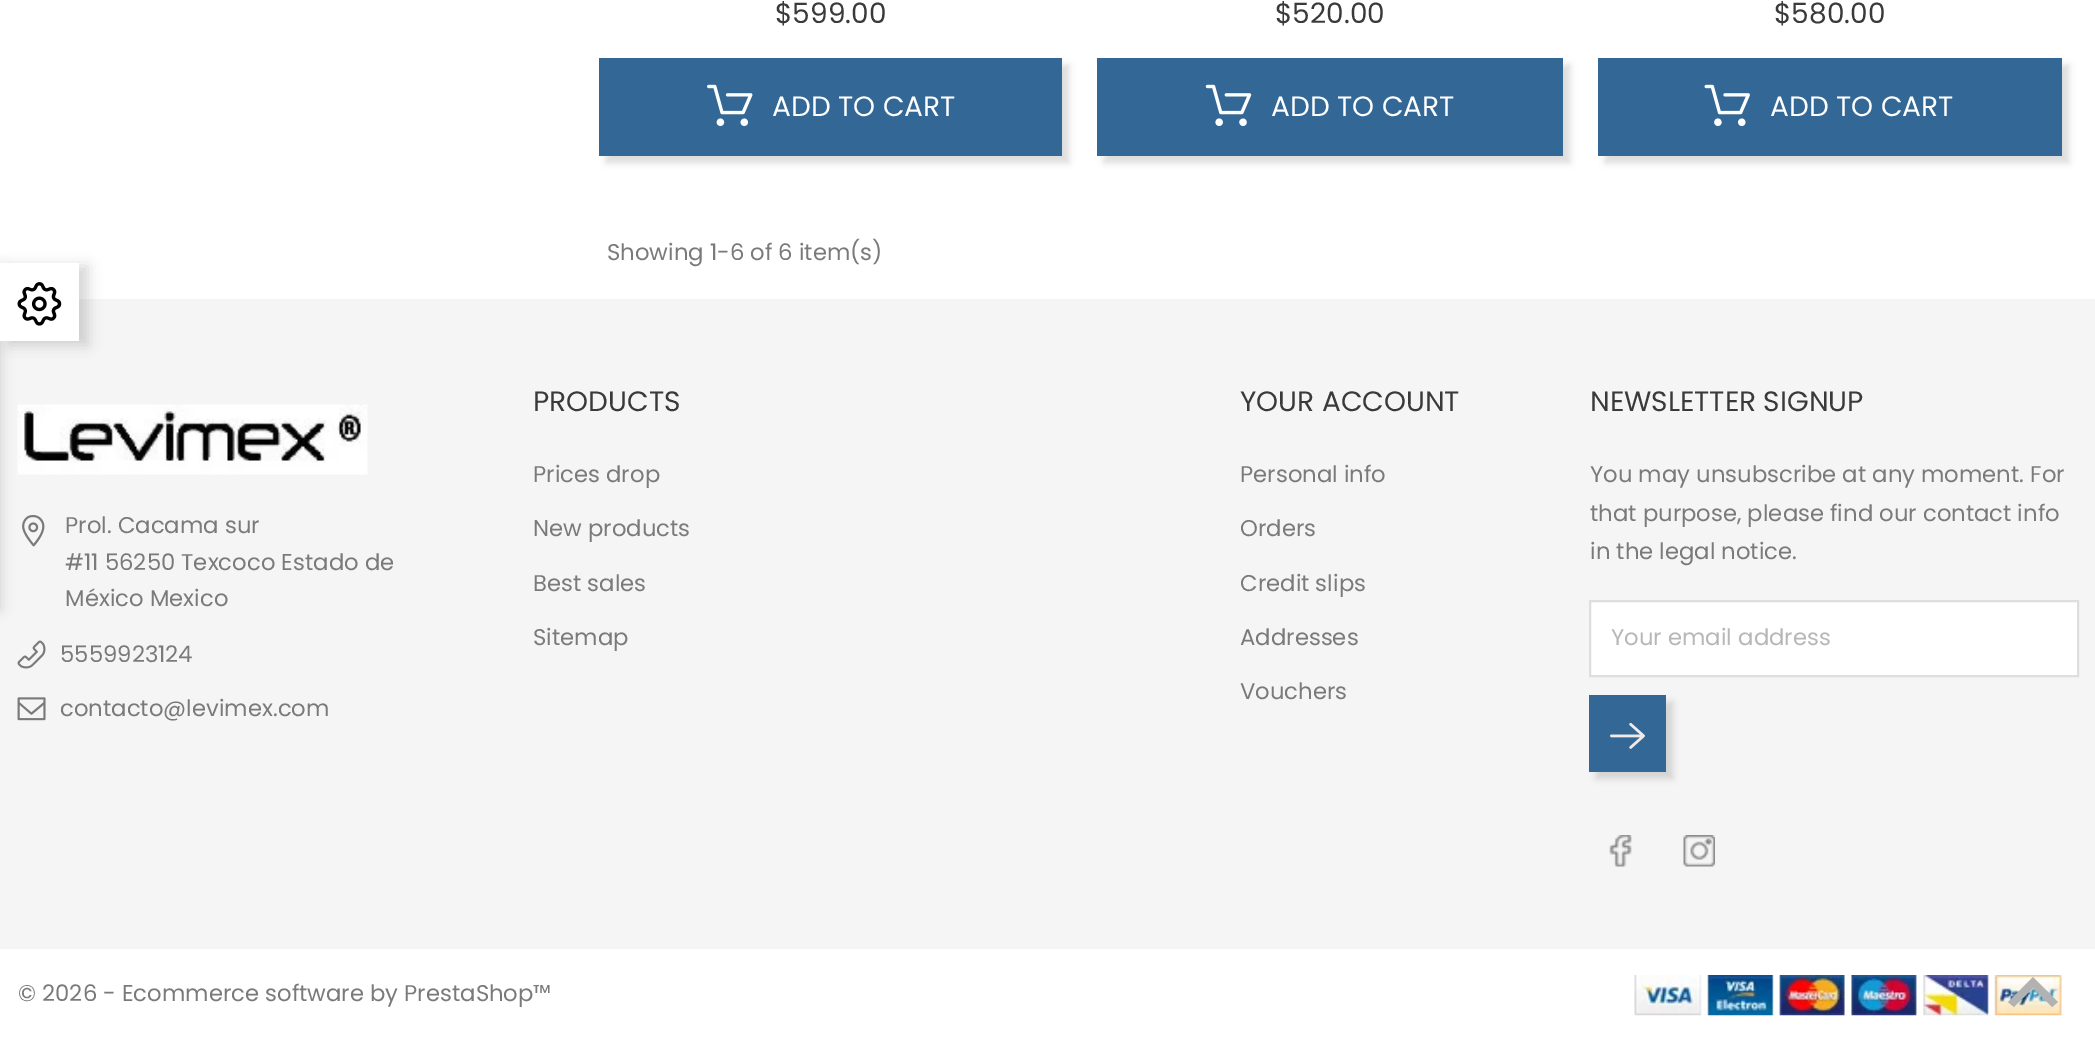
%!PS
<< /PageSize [2095 1037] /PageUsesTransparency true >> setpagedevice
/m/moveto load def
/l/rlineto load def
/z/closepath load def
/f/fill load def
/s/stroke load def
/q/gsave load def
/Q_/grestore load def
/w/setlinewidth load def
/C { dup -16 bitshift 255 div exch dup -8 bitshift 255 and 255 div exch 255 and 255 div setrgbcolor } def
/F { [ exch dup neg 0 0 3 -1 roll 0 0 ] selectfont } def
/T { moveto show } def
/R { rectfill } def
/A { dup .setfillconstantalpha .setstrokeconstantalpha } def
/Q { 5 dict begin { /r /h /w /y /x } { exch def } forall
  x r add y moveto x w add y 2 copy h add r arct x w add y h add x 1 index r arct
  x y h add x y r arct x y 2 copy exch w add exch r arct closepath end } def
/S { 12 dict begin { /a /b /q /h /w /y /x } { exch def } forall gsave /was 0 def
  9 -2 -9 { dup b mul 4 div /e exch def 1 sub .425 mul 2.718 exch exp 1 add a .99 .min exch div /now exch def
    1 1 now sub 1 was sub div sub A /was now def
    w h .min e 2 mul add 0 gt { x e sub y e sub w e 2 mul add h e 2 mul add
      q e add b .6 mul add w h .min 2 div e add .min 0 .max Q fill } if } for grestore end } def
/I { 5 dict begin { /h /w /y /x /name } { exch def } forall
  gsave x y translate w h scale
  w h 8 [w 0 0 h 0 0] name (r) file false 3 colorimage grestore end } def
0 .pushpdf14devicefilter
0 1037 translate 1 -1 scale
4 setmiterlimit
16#FFFFFF C
0 0 2095 1037 R
/Poppins-Regular 28 F
16#3A3A3A C
($599.00) 775 23 T
16#000000 C
606 65 463 98 0 3.5 .14 S
16#336796 C
599 58 463 98 R
(1.rgb) 707 84 46 43 I
16#FFFFFF C
(ADD TO CART) 772 116 T
16#3A3A3A C
($520.00) 1275 23 T
16#000000 C
1104 65 466 98 0 3.5 .14 S
16#336796 C
1097 58 466 98 R
(2.rgb) 1205 84 47 43 I
16#FFFFFF C
(ADD TO CART) 1271 116 T
16#3A3A3A C
($580.00) 1774 23 T
16#000000 C
1605 65 464 98 0 3.5 .14 S
16#336796 C
1598 58 464 98 R
(3.rgb) 1704 84 46 43 I
16#FFFFFF C
(ADD TO CART) 1770 116 T
/Poppins-Regular 22.75 F
16#7A7A7A C
(Showing 1-6 of 6 item\(s\)) 607 260 T
16#F5F5F5 C
0 299 2095 650 R
(5.rgb) 17 404 351 71 I
16#000000 C
-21 266 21 343 0 7 .16 S
9 266 79 79 0 7 .16 S
16#FFFFFF C
0 263 79 78 R
(4.rgb) 17 282 45 44 I
(6.rgb) 22 515 23 32 I
16#7A7A7A C
(Prol. Cacama sur) 65 533 T
(#11 56250 Texcoco Estado de) 65 570 T
(México Mexico) 65 606 T
(7.rgb) 17 640 29 29 I
(5559923124) 60 662 T
(8.rgb) 17 697 29 24 I
(contacto@levimex.com) 60 716 T
/Poppins-Regular 28 F
16#3A3A3A C
(PRODUCTS) 533 411 T
/Poppins-Regular 22.75 F
16#7A7A7A C
(Prices drop) 533 482 T
(New products) 533 536 T
(Best sales) 533 591 T
(Sitemap) 533 645 T
/Poppins-Regular 28 F
16#3A3A3A C
(YOUR ACCOUNT) 1240 411 T
/Poppins-Regular 22.75 F
16#7A7A7A C
(Personal info) 1240 482 T
(Orders) 1240 536 T
(Credit slips) 1240 591 T
(Addresses) 1240 645 T
(Vouchers) 1240 699 T
/Poppins-Regular 28 F
16#3A3A3A C
(NEWSLETTER SIGNUP) 1590 411 T
/Poppins-Regular 22.75 F
16#7A7A7A C
(You may unsubscribe at any moment. For) 1590 482 T
(that purpose, please find our contact info) 1590 521 T
(in the legal notice.) 1590 559 T
16#FFFFFF C
1590 601 m 488 0 l 0 75 l -488 0 l z q f Q_
16#DEDEDE C
2 w
s
16#B7B7B7 C
(Your email address) 1611 645 T
16#000000 C
1596 702 77 77 0 3.5 .14 S
16#336796 C
1589 695 77 77 R
(9.rgb) 1610 722 35 27 I
(10.rgb) 1609 835 23 32 I
(11.rgb) 1683 835 32 32 I
16#7A7A7A C
(© 2026 - Ecommerce software by PrestaShop™) 18 1001 T
(12.rgb) 1634 975 428 41 I
16#B2B2B2 C
2033 977 m 25 25 l -6 5 l -19 -19 l -19 19 l -6 -5 l z f
.poppdf14devicefilter showpage
